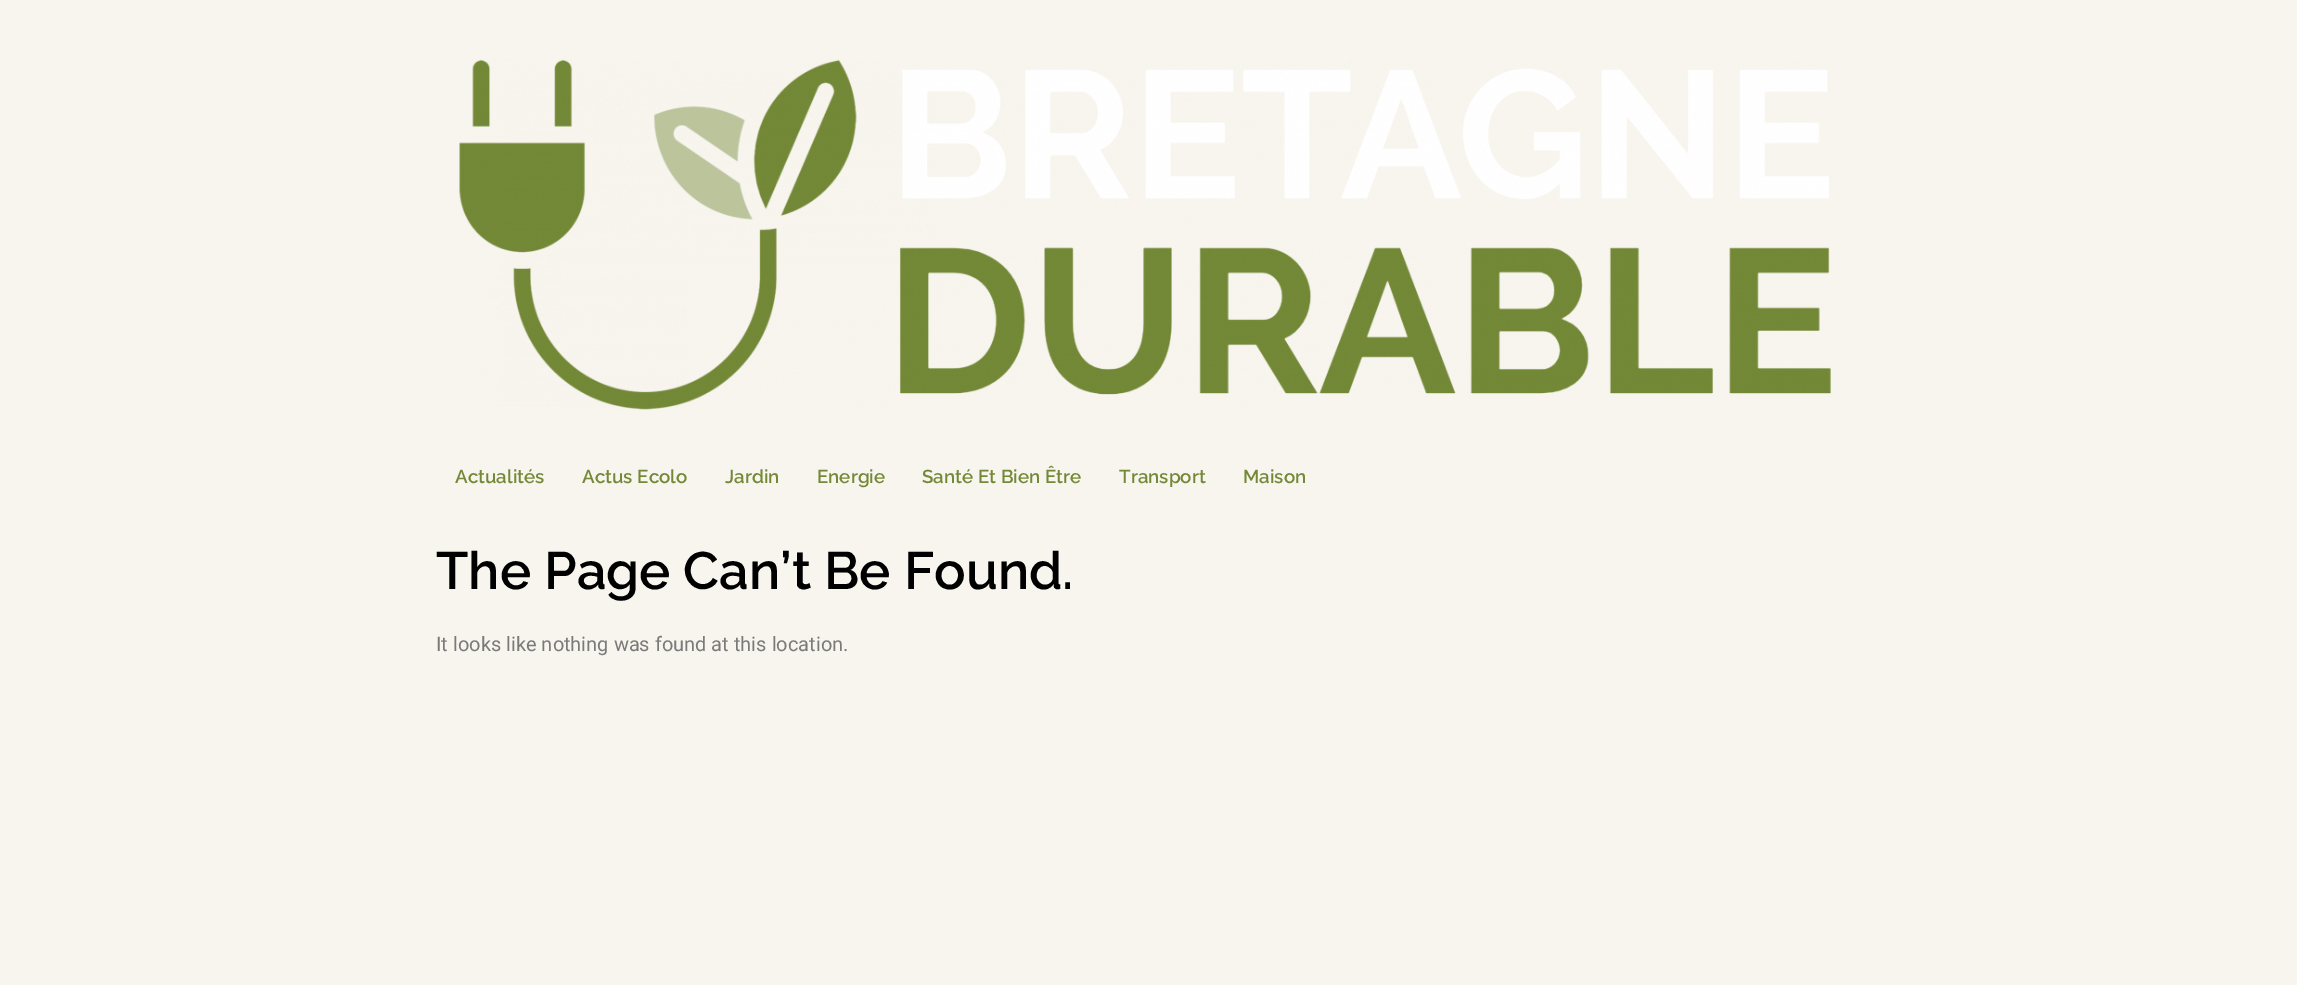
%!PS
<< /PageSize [2297 985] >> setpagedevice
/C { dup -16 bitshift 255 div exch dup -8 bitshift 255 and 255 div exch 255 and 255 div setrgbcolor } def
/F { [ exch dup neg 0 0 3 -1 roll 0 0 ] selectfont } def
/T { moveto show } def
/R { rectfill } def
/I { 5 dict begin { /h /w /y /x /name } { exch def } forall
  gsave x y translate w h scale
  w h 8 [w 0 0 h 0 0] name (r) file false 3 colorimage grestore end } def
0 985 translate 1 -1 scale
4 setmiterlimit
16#F8F5EF C
0 0 2297 985 R
(1.rgb) 459 59 1372 351 I
/Raleway-SemiBold 18.75 F
16#738937 C
(Actualités) 455 483 T
(Actus Ecolo) 582 483 T
(Jardin) 725 483 T
(Energie) 817 483 T
(Santé Et Bien Être) 922 483 T
(Transport) 1119 483 T
(Maison) 1243 483 T
/Raleway-SemiBold 52.5 F
16#000000 C
(The Page Can’t Be Found.) 436 589 T
/Roboto-Regular 20 F
16#7A7A7A C
(It looks like nothing was found at this location.) 436 651 T
showpage
